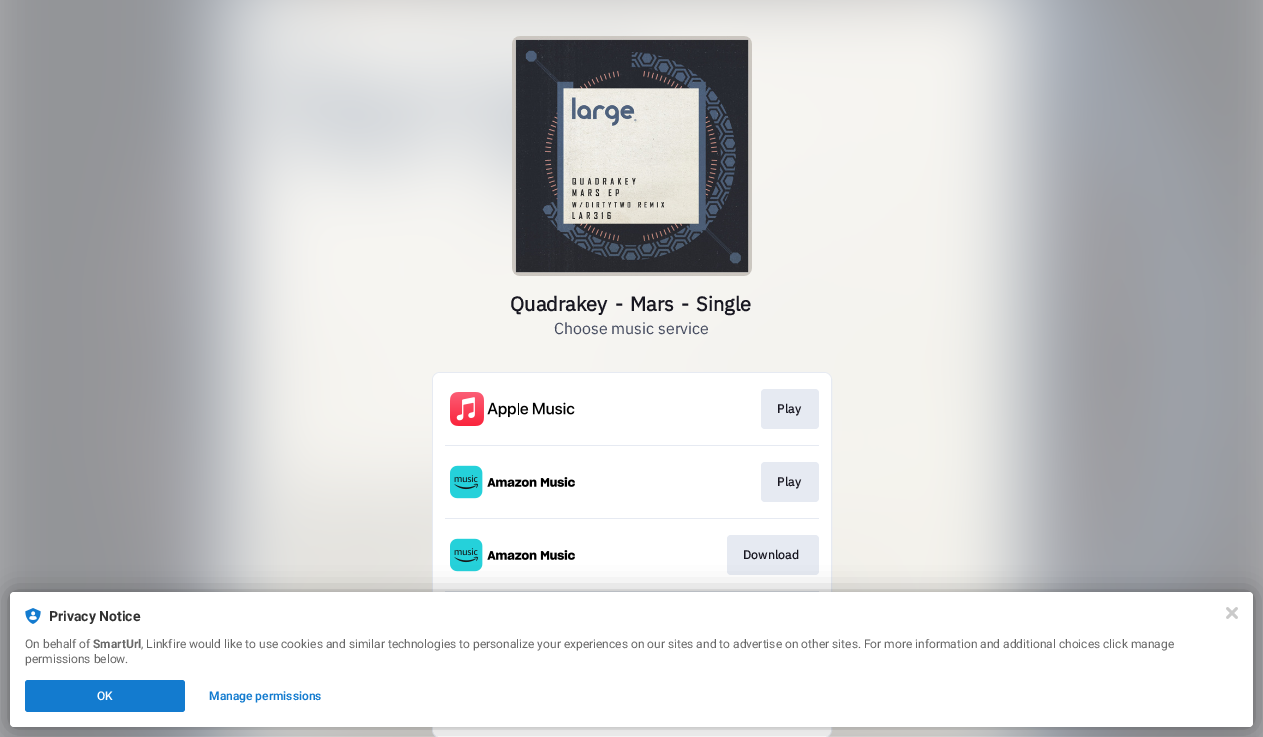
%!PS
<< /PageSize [1263 737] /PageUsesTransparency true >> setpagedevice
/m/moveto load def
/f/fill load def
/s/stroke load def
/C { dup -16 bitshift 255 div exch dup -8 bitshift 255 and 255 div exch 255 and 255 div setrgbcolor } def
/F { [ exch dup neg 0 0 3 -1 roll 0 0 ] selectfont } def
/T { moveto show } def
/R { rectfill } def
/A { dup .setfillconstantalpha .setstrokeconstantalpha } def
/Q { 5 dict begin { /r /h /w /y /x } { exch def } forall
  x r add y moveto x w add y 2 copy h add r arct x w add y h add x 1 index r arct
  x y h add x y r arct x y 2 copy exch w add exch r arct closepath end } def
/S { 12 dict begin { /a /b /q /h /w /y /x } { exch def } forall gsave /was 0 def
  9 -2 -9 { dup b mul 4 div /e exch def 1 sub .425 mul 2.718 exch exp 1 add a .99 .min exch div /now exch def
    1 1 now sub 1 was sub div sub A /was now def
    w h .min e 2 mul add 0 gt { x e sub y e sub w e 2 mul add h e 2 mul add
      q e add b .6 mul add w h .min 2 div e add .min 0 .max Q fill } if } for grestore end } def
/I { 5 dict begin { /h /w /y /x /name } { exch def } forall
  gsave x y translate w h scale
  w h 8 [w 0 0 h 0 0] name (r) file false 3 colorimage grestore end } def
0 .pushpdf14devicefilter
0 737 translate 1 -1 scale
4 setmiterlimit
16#FFFFFF C
0 0 1263 737 R
(1.rgb) 0 0 1263 737 I
(2.rgb) 512 36 240 240 I
/IBMPlexSans-Bold 20 F
16#181721 C
510 311 m 2.5 0 32 (Quadrakey - Mars - Single) widthshow
/IBMPlexSans-Regular 16 F
16#454B5F C
(Choose music service) 554 334 T
16#E6EAF2 C
432.5 372.5 399 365 7.5 Q s
16#FFFFFF C
433 373 398 364 7 Q f
(3.rgb) 450 392 125 34 I
16#E6EAF2 C
761 389 58 40 4 Q f
/IBMPlexSans-Bold 12 F
16#181721 C
777 413 m .25 0 (Play) ashow
16#E6EAF2 C
445 445 374 1 R
(4.rgb) 450 465 125 34 I
761 462 58 40 4 Q f
16#181721 C
777 486 m .25 0 (Play) ashow
16#E6EAF2 C
445 518 374 1 R
(4.rgb) 450 538 125 34 I
727 535 92 40 4 Q f
16#181721 C
743 559 m .25 0 (Download) ashow
16#E6EAF2 C
445 591 374 1 R
16#000000 C
10 592 1243 135 4 2 .12 S
10 592 1243 135 4 12 .3 S
16#FFFFFF C
10 592 1243 135 4 Q f
(5.rgb) 25 608 16 16 I
/Roboto-Bold 14 F
16#323232 C
(Privacy Notice) 49 621 T
/Roboto-Regular 12 F
16#686868 C
(On behalf of) 25 648 T
/Roboto-Bold 12 F
(SmartUrl) 93 648 T
/Roboto-Regular 12 F
(, Linkfire would like to use cookies and similar technologies to personalize your experiences on our sites and to advertise on other sites. For more information and additional choices click manage) 141 648 T
(permissions below.) 25 663 T
16#137BCF C
25 680 160 32 3 Q f
/Roboto-Medium 12 F
16#FFFFFF C
(OK) 97 700 T
/Roboto-SemiBold 12 F
16#137BCF C
(Manage permissions) 209 700 T
(6.rgb) 1226 607 12 12 I
.poppdf14devicefilter showpage
